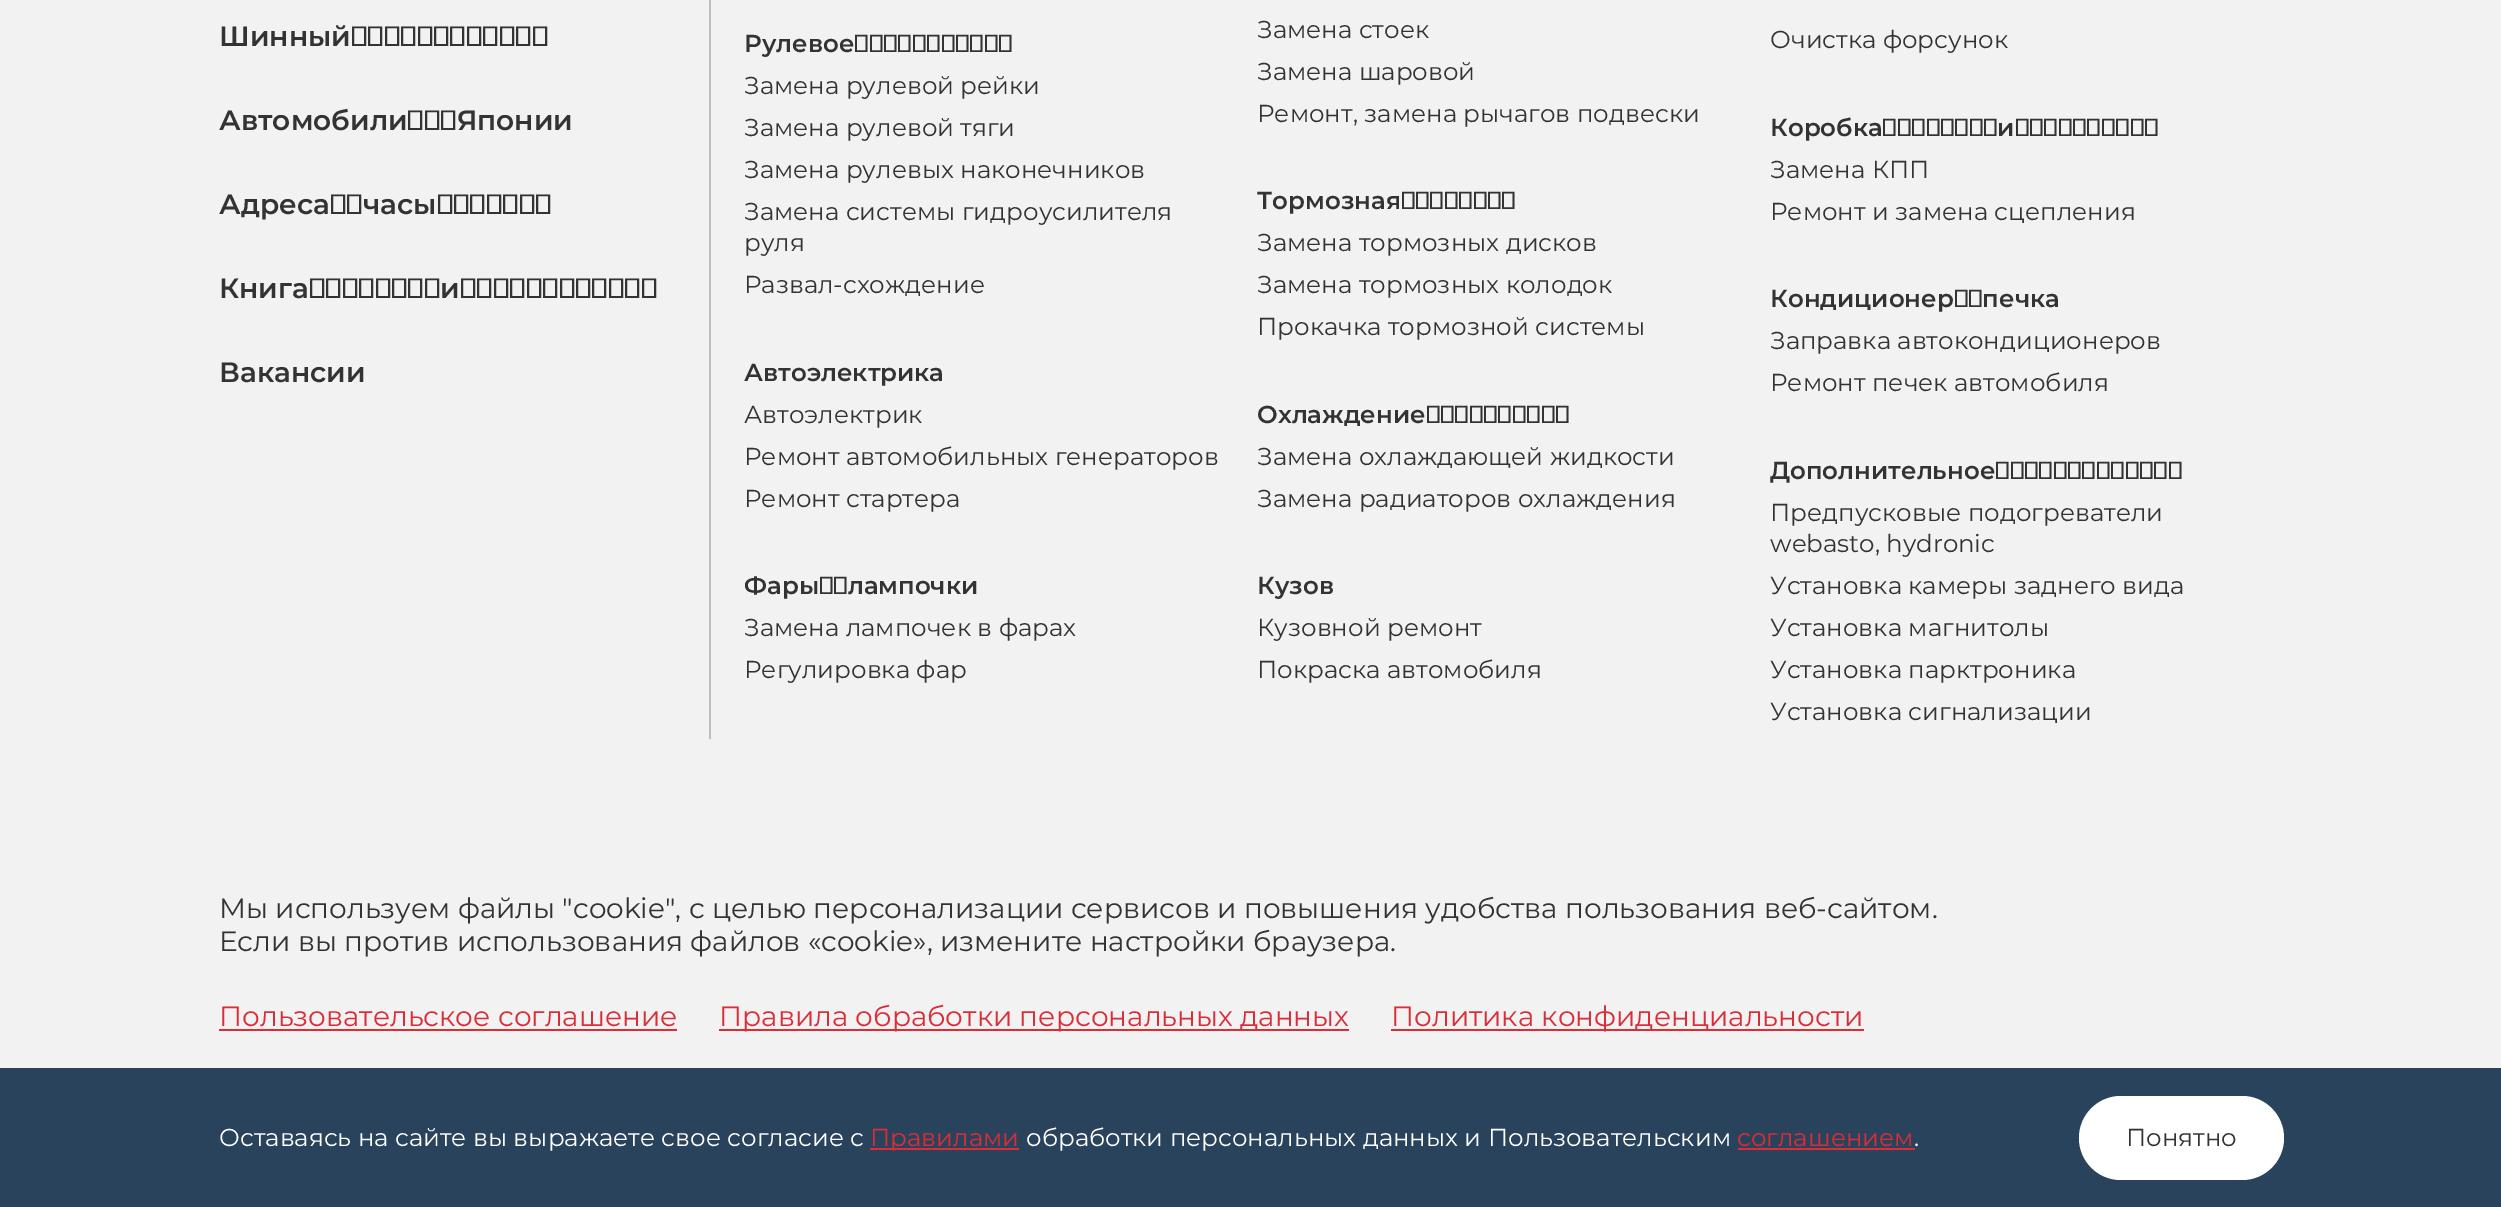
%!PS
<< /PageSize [2501 1207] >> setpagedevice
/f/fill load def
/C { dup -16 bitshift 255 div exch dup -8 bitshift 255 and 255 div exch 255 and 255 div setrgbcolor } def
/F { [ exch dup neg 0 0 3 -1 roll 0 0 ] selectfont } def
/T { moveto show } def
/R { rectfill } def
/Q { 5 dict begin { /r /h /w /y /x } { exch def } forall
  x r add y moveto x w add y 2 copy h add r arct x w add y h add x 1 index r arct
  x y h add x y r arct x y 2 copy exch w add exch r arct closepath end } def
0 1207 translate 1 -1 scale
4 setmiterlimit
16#F2F2F2 C
0 0 2501 1207 R
/Montserrat-SemiBold 28 F
16#333333 C
(Шинный калькулятор) 219 46 T
(Автомобили из Японии) 219 130 T
(Адреса и часы работы) 219 214 T
(Книга отзывов и предложений) 219 298 T
(Вакансии) 219 382 T
16#BDBDBD C
709 0 2 739 R
/Montserrat-SemiBold 24.5 F
16#333333 C
(Рулевое управление) 744 52 T
/Montserrat-Regular 24.5 F
(Замена рулевой рейки) 744 94 T
(Замена рулевой тяги) 744 136 T
(Замена рулевых наконечников) 744 178 T
(Замена системы гидроусилителя) 744 220 T
(руля) 744 251 T
(Развал-схождение) 744 293 T
/Montserrat-SemiBold 24.5 F
(Автоэлектрика) 744 381 T
/Montserrat-Regular 24.5 F
(Автоэлектрик) 744 423 T
(Ремонт автомобильных генераторов) 744 465 T
(Ремонт стартера) 744 507 T
/Montserrat-SemiBold 24.5 F
(Фары и лампочки) 744 594 T
/Montserrat-Regular 24.5 F
(Замена лампочек в фарах) 744 636 T
(Регулировка фар) 744 678 T
(Замена стоек) 1257 38 T
(Замена шаровой) 1257 80 T
(Ремонт, замена рычагов подвески) 1257 122 T
/Montserrat-SemiBold 24.5 F
(Тормозная система) 1257 209 T
/Montserrat-Regular 24.5 F
(Замена тормозных дисков) 1257 251 T
(Замена тормозных колодок) 1257 293 T
(Прокачка тормозной системы) 1257 335 T
/Montserrat-SemiBold 24.5 F
(Охлаждение двигателя) 1257 423 T
/Montserrat-Regular 24.5 F
(Замена охлаждающей жидкости) 1257 465 T
(Замена радиаторов охлаждения) 1257 507 T
/Montserrat-SemiBold 24.5 F
(Кузов) 1257 594 T
/Montserrat-Regular 24.5 F
(Кузовной ремонт) 1257 636 T
(Покраска автомобиля) 1257 678 T
(Очистка форсунок) 1770 48 T
/Montserrat-SemiBold 24.5 F
(Коробка передач и сцепление) 1770 136 T
/Montserrat-Regular 24.5 F
(Замена КПП) 1770 178 T
(Ремонт и замена сцепления) 1770 220 T
/Montserrat-SemiBold 24.5 F
(Кондиционер и печка) 1770 307 T
/Montserrat-Regular 24.5 F
(Заправка автокондиционеров) 1770 349 T
(Ремонт печек автомобиля) 1770 391 T
/Montserrat-SemiBold 24.5 F
(Дополнительное оборудование) 1770 479 T
/Montserrat-Regular 24.5 F
(Предпусковые подогреватели) 1770 521 T
(webasto, hydronic) 1770 552 T
(Установка камеры заднего вида) 1770 594 T
(Установка магнитолы) 1770 636 T
(Установка парктроника) 1770 678 T
(Установка сигнализации) 1770 720 T
16#2A435C C
0 1068 2501 139 R
/Montserrat-Regular 28 F
16#333333 C
(Мы используем файлы "cookie", с целью персонализации сервисов и повышения удобства пользования веб-сайтом.) 219 918 T
(Если вы против использования файлов «cookie», измените настройки браузера.) 219 951 T
16#DB2D38 C
(Пользовательское соглашение) 219 1026 T
219 1029 458 2 R
719 1029 630 2 R
(Правила обработки персональных данных) 719 1026 T
1391 1029 473 2 R
(Политика конфиденциальности) 1391 1026 T
/Montserrat-Regular 24.5 F
16#FFFFFF C
(Оставаясь на сайте вы выражаете свое согласие с) 219 1146 T
16#DB2D38 C
870 1148 149 2 R
(Правилами) 870 1146 T
16#FFFFFF C
(обработки персональных данных и Пользовательским) 1026 1146 T
16#DB2D38 C
(соглашением) 1737 1146 T
1738 1148 177 2 R
16#FFFFFF C
(.) 1914 1146 T
2079 1096 205 84 42 Q f
16#333333 C
(Понятно) 2126 1146 T
showpage
